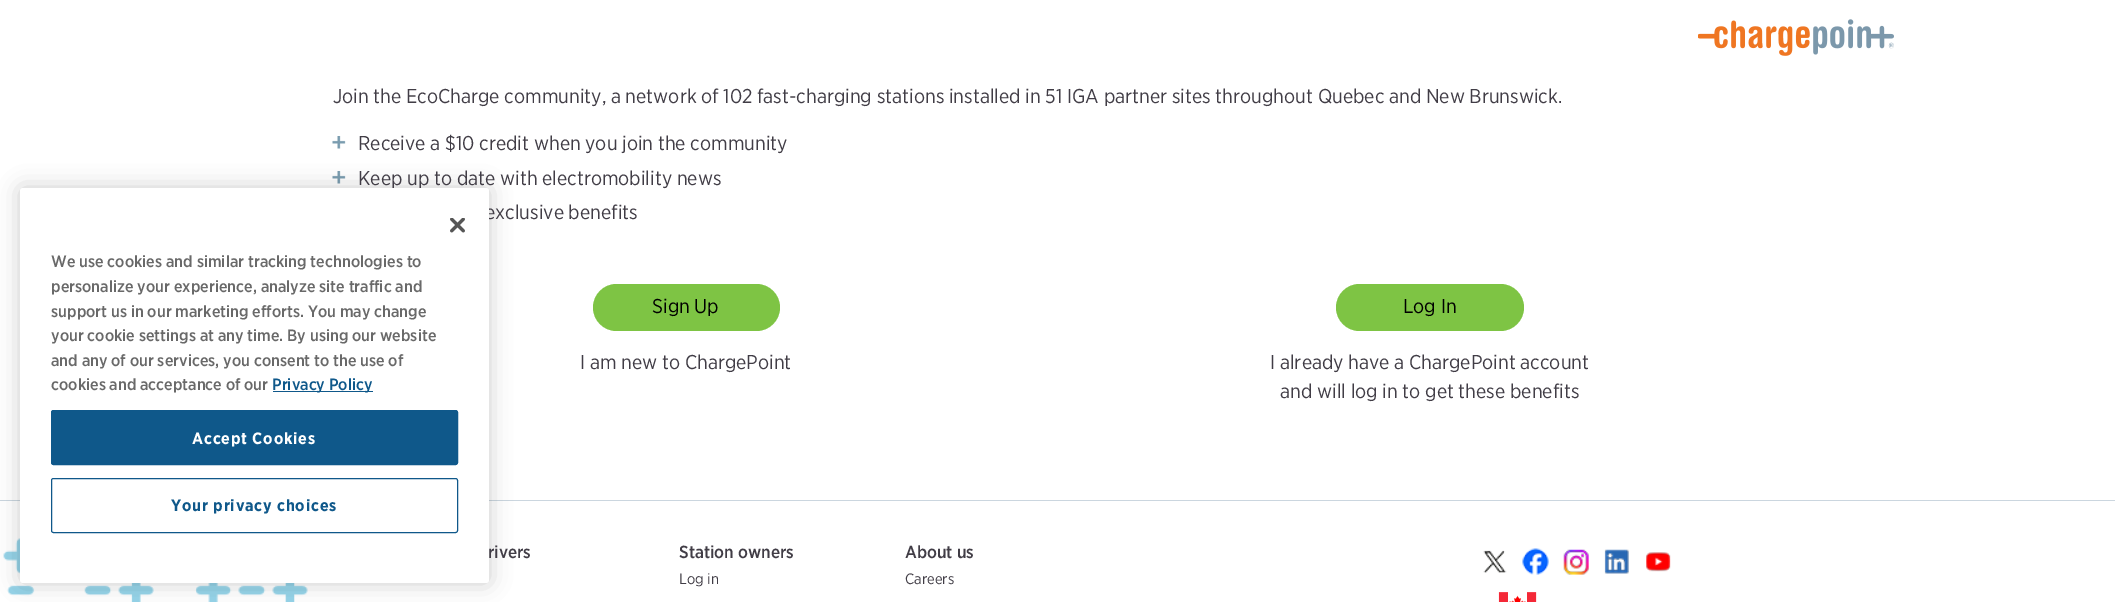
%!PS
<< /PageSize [2115 602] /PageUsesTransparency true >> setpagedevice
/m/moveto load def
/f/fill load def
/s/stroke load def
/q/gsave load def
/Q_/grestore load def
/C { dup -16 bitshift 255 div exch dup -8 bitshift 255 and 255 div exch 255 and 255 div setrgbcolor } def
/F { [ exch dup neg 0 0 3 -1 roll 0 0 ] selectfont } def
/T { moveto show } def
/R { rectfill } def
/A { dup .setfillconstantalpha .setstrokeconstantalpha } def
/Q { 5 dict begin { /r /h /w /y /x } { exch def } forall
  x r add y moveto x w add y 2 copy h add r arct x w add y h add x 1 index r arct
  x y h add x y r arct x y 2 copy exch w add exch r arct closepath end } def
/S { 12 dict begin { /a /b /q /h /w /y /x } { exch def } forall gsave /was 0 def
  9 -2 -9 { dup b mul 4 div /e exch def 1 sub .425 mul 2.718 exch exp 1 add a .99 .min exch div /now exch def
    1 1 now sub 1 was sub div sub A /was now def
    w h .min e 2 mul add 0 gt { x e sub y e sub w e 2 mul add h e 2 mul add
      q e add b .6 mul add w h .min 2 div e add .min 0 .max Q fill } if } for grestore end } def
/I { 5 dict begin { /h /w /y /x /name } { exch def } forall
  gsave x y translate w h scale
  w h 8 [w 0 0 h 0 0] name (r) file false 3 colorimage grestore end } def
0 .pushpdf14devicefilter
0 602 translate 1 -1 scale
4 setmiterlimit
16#FFFFFF C
0 0 2115 602 R
(3.rgb) 332 171 14 13 I
16#CBD6DF C
0 500 2115 1 R
(4.rgb) 3 538 305 64 I
16#000000 C
20 188 469 395 3 11 .2 S
/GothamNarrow-Regular 20 F
16#413D46 C
(Keep up to date with electromobility news) 358 185 T
(exclusive benefits) 485 219 T
16#FFFFFF C
20 188 469 395 3 Q f
(1.rgb) 450 218 15 15 I
/GothamNarrow-Medium 16.4 F
16#696969 C
(We use cookies and similar tracking technologies to) 51 267 T
(personalize your experience, analyze site traffic and) 51 292 T
(support us in our marketing efforts. You may change) 51 317 T
(your cookie settings at any time. By using our website) 51 341 T
(and any of our services, you consent to the use of) 51 366 T
(cookies and acceptance of our) 51 390 T
16#0F588A C
273 391 100 1 R
(Privacy Policy) 272 390 T
51.5 410.5 406 54 2 Q q f Q_
s
/GothamNarrow-Bold 16.4 F
16#FFFFFF C
192 444 m .8 0 (Accept Cookies) ashow
16#0F588A C
51.5 478.5 406 54 2 Q s
171 511 m .8 0 (Your privacy choices) ashow
(2.rgb) 1698 19 196 37 I
/GothamNarrow-Regular 20 F
16#413D46 C
(Join the EcoCharge community, a network of 102 fast-charging stations installed in 51 IGA partner sites throughout Quebec and New Brunswick.) 333 103 T
(3.rgb) 332 136 14 13 I
(Receive a $10 credit when you join the community) 358 150 T
16#7EC444 C
593 284 187 47 23.5 Q f
16#000000 C
(Sign Up) 652 313 T
16#413D46 C
(I am new to ChargePoint) 580 369 T
16#7EC444 C
1336 284 188 47 23.5 Q f
16#000000 C
(Log In) 1403 313 T
16#413D46 C
(I already have a ChargePoint account) 1270 369 T
(and will log in to get these benefits) 1280 398 T
/GothamNarrow-Medium 17.5 F
(rivers) 488 558 T
(Station owners) 679 558 T
/GothamNarrow-Regular 15 F
(Log in) 679 584 T
/GothamNarrow-Medium 17.5 F
(About us) 905 558 T
/GothamNarrow-Regular 15 F
(Careers) 905 584 T
(5.rgb) 1483 550 24 23 I
(6.rgb) 1522 548 27 27 I
(7.rgb) 1563 549 26 26 I
(8.rgb) 1604 549 25 25 I
(9.rgb) 1646 552 25 20 I
(10.rgb) 1498 592 39 10 I
.poppdf14devicefilter showpage
